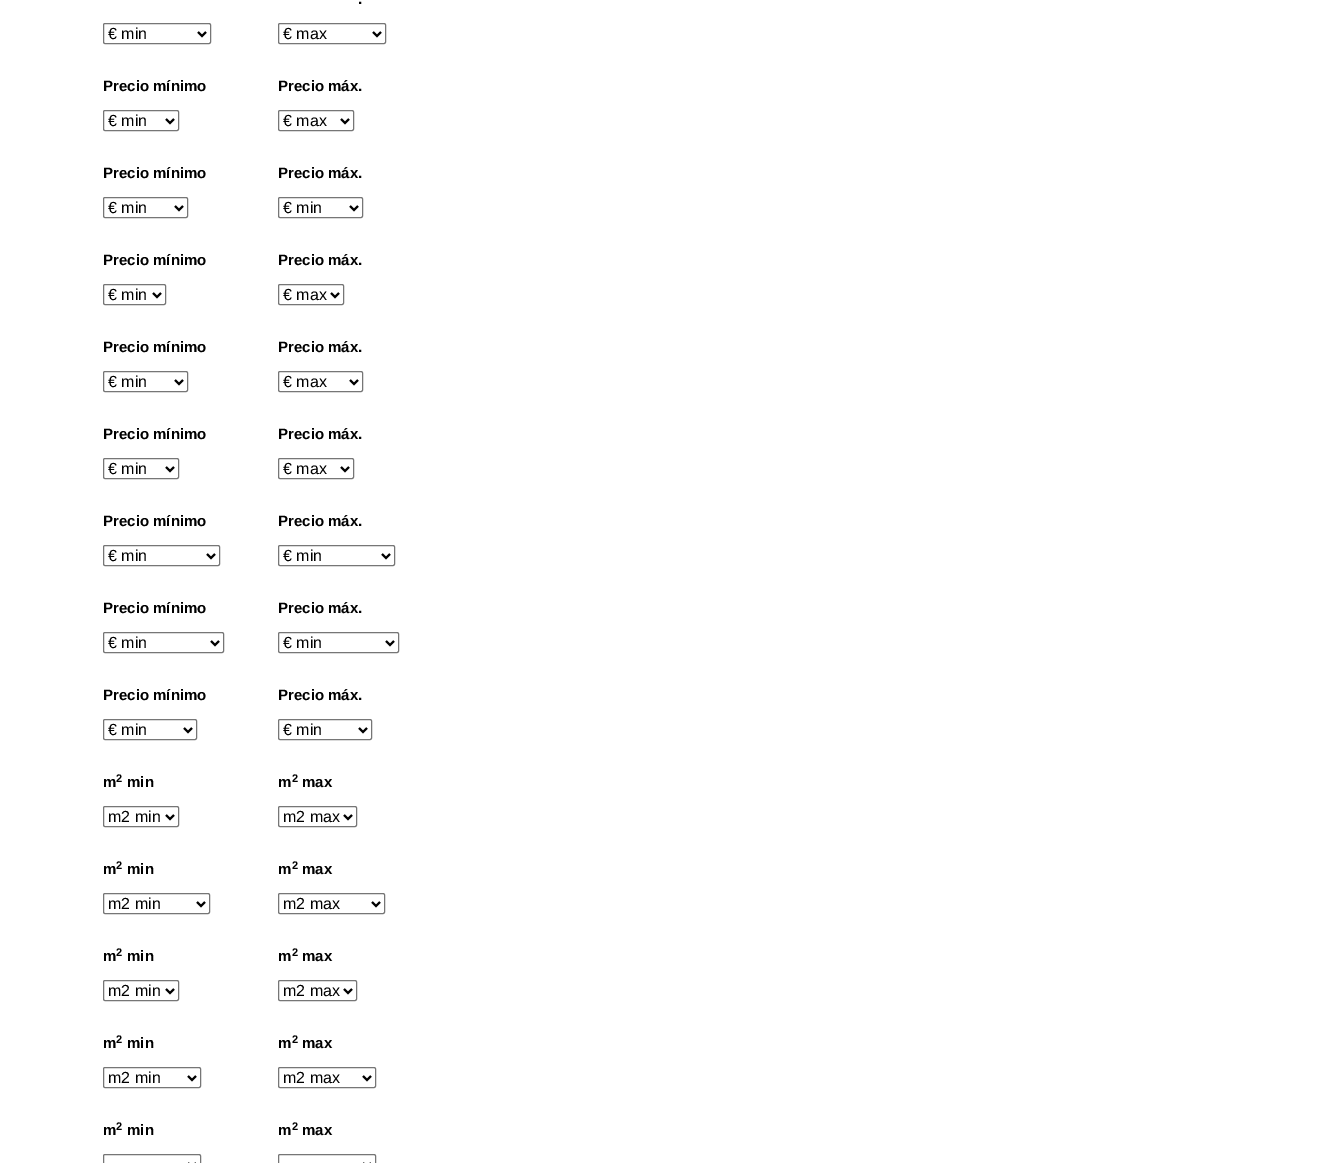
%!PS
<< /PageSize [1334 1163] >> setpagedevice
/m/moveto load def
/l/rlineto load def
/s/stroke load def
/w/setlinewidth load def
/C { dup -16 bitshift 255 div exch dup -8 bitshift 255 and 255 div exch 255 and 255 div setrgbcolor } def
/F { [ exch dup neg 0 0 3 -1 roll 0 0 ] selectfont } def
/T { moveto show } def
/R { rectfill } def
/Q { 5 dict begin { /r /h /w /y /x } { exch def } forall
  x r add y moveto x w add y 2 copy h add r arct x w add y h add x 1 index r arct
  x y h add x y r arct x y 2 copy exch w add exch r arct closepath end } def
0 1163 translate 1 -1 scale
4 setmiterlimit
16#FFFFFF C
0 0 1334 1163 R
16#767676 C
103.5 23.5 107 20 1.5 Q s
16#000000 C
2 w
198 32 m 4 4 l 4 -4 l s
/LiberationSans-Regular 16 F
(€ min) 108 39 T
/LiberationSans-Bold 15 F
(.) 358 4 T
16#767676 C
1 w
278.5 23.5 107 20 1.5 Q s
16#000000 C
2 w
373 32 m 4 4 l 4 -4 l s
/LiberationSans-Regular 16 F
(€ max) 283 39 T
/LiberationSans-Bold 15 F
(Precio mínimo) 103 91 T
16#767676 C
1 w
103.5 110.5 75 20 1.5 Q s
16#000000 C
2 w
166 119 m 4 4 l 4 -4 l s
/LiberationSans-Regular 16 F
(€ min) 108 126 T
/LiberationSans-Bold 15 F
(Precio máx.) 278 91 T
16#767676 C
1 w
278.5 110.5 75 20 1.5 Q s
16#000000 C
2 w
341 119 m 4 4 l 4 -4 l s
/LiberationSans-Regular 16 F
(€ max) 283 126 T
/LiberationSans-Bold 15 F
(Precio mínimo) 103 178 T
16#767676 C
1 w
103.5 197.5 84 20 1.5 Q s
16#000000 C
2 w
175 206 m 4 4 l 4 -4 l s
/LiberationSans-Regular 16 F
(€ min) 108 213 T
/LiberationSans-Bold 15 F
(Precio máx.) 278 178 T
16#767676 C
1 w
278.5 197.5 84 20 1.5 Q s
16#000000 C
2 w
350 206 m 4 4 l 4 -4 l s
/LiberationSans-Regular 16 F
(€ min) 283 213 T
/LiberationSans-Bold 15 F
(Precio mínimo) 103 265 T
16#767676 C
1 w
103.5 284.5 62 20 1.5 Q s
16#000000 C
2 w
153 293 m 4 4 l 4 -4 l s
/LiberationSans-Regular 16 F
(€ min) 108 300 T
/LiberationSans-Bold 15 F
(Precio máx.) 278 265 T
16#767676 C
1 w
278.5 284.5 65 20 1.5 Q s
16#000000 C
2 w
331 293 m 4 4 l 4 -4 l s
/LiberationSans-Regular 16 F
(€ max) 283 300 T
/LiberationSans-Bold 15 F
(Precio mínimo) 103 352 T
16#767676 C
1 w
103.5 371.5 84 20 1.5 Q s
16#000000 C
2 w
175 380 m 4 4 l 4 -4 l s
/LiberationSans-Regular 16 F
(€ min) 108 387 T
/LiberationSans-Bold 15 F
(Precio máx.) 278 352 T
16#767676 C
1 w
278.5 371.5 84 20 1.5 Q s
16#000000 C
2 w
350 380 m 4 4 l 4 -4 l s
/LiberationSans-Regular 16 F
(€ max) 283 387 T
/LiberationSans-Bold 15 F
(Precio mínimo) 103 439 T
16#767676 C
1 w
103.5 458.5 75 20 1.5 Q s
16#000000 C
2 w
166 467 m 4 4 l 4 -4 l s
/LiberationSans-Regular 16 F
(€ min) 108 474 T
/LiberationSans-Bold 15 F
(Precio máx.) 278 439 T
16#767676 C
1 w
278.5 458.5 75 20 1.5 Q s
16#000000 C
2 w
341 467 m 4 4 l 4 -4 l s
/LiberationSans-Regular 16 F
(€ max) 283 474 T
/LiberationSans-Bold 15 F
(Precio mínimo) 103 526 T
16#767676 C
1 w
103.5 545.5 116 20 1.5 Q s
16#000000 C
2 w
207 554 m 4 4 l 4 -4 l s
/LiberationSans-Regular 16 F
(€ min) 108 561 T
/LiberationSans-Bold 15 F
(Precio máx.) 278 526 T
16#767676 C
1 w
278.5 545.5 116 20 1.5 Q s
16#000000 C
2 w
382 554 m 4 4 l 4 -4 l s
/LiberationSans-Regular 16 F
(€ min) 283 561 T
/LiberationSans-Bold 15 F
(Precio mínimo) 103 613 T
16#767676 C
1 w
103.5 632.5 120 20 1.5 Q s
16#000000 C
2 w
211 641 m 4 4 l 4 -4 l s
/LiberationSans-Regular 16 F
(€ min) 108 648 T
/LiberationSans-Bold 15 F
(Precio máx.) 278 613 T
16#767676 C
1 w
278.5 632.5 120 20 1.5 Q s
16#000000 C
2 w
386 641 m 4 4 l 4 -4 l s
/LiberationSans-Regular 16 F
(€ min) 283 648 T
/LiberationSans-Bold 15 F
(Precio mínimo) 103 700 T
16#767676 C
1 w
103.5 719.5 93 20 1.5 Q s
16#000000 C
2 w
184 728 m 4 4 l 4 -4 l s
/LiberationSans-Regular 16 F
(€ min) 108 735 T
/LiberationSans-Bold 15 F
(Precio máx.) 278 700 T
16#767676 C
1 w
278.5 719.5 93 20 1.5 Q s
16#000000 C
2 w
359 728 m 4 4 l 4 -4 l s
/LiberationSans-Regular 16 F
(€ min) 283 735 T
/LiberationSans-Bold 15 F
(m) 103 787 T
/LiberationSans-Bold 11 F
(2) 116 782 T
/LiberationSans-Bold 15 F
(min) 127 787 T
16#767676 C
1 w
103.5 806.5 75 20 1.5 Q s
16#000000 C
2 w
166 815 m 4 4 l 4 -4 l s
/LiberationSans-Regular 16 F
(m2 min) 108 822 T
/LiberationSans-Bold 15 F
(m) 278 787 T
/LiberationSans-Bold 11 F
(2) 292 782 T
/LiberationSans-Bold 15 F
(max) 302 787 T
16#767676 C
1 w
278.5 806.5 78 20 1.5 Q s
16#000000 C
2 w
344 815 m 4 4 l 4 -4 l s
/LiberationSans-Regular 16 F
(m2 max) 283 822 T
/LiberationSans-Bold 15 F
(m) 103 874 T
/LiberationSans-Bold 11 F
(2) 116 869 T
/LiberationSans-Bold 15 F
(min) 127 874 T
16#767676 C
1 w
103.5 893.5 106 20 1.5 Q s
16#000000 C
2 w
197 902 m 4 4 l 4 -4 l s
/LiberationSans-Regular 16 F
(m2 min) 108 909 T
/LiberationSans-Bold 15 F
(m) 278 874 T
/LiberationSans-Bold 11 F
(2) 292 869 T
/LiberationSans-Bold 15 F
(max) 302 874 T
16#767676 C
1 w
278.5 893.5 106 20 1.5 Q s
16#000000 C
2 w
372 902 m 4 4 l 4 -4 l s
/LiberationSans-Regular 16 F
(m2 max) 283 909 T
/LiberationSans-Bold 15 F
(m) 103 961 T
/LiberationSans-Bold 11 F
(2) 116 956 T
/LiberationSans-Bold 15 F
(min) 127 961 T
16#767676 C
1 w
103.5 980.5 75 20 1.5 Q s
16#000000 C
2 w
166 989 m 4 4 l 4 -4 l s
/LiberationSans-Regular 16 F
(m2 min) 108 996 T
/LiberationSans-Bold 15 F
(m) 278 961 T
/LiberationSans-Bold 11 F
(2) 292 956 T
/LiberationSans-Bold 15 F
(max) 302 961 T
16#767676 C
1 w
278.5 980.5 78 20 1.5 Q s
16#000000 C
2 w
344 989 m 4 4 l 4 -4 l s
/LiberationSans-Regular 16 F
(m2 max) 283 996 T
/LiberationSans-Bold 15 F
(m) 103 1048 T
/LiberationSans-Bold 11 F
(2) 116 1043 T
/LiberationSans-Bold 15 F
(min) 127 1048 T
16#767676 C
1 w
103.5 1067.5 97 20 1.5 Q s
16#000000 C
2 w
188 1076 m 4 4 l 4 -4 l s
/LiberationSans-Regular 16 F
(m2 min) 108 1083 T
/LiberationSans-Bold 15 F
(m) 278 1048 T
/LiberationSans-Bold 11 F
(2) 292 1043 T
/LiberationSans-Bold 15 F
(max) 302 1048 T
16#767676 C
1 w
278.5 1067.5 97 20 1.5 Q s
16#000000 C
2 w
363 1076 m 4 4 l 4 -4 l s
/LiberationSans-Regular 16 F
(m2 max) 283 1083 T
/LiberationSans-Bold 15 F
(m) 103 1135 T
/LiberationSans-Bold 11 F
(2) 116 1130 T
/LiberationSans-Bold 15 F
(min) 127 1135 T
16#767676 C
1 w
103.5 1154.5 97 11 1.5 Q s
16#000000 C
2 w
188 1163 m 4 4 l 4 -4 l s
(m) 278 1135 T
/LiberationSans-Bold 11 F
(2) 292 1130 T
/LiberationSans-Bold 15 F
(max) 302 1135 T
16#767676 C
1 w
278.5 1154.5 97 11 1.5 Q s
16#000000 C
2 w
363 1163 m 4 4 l 4 -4 l s
showpage
